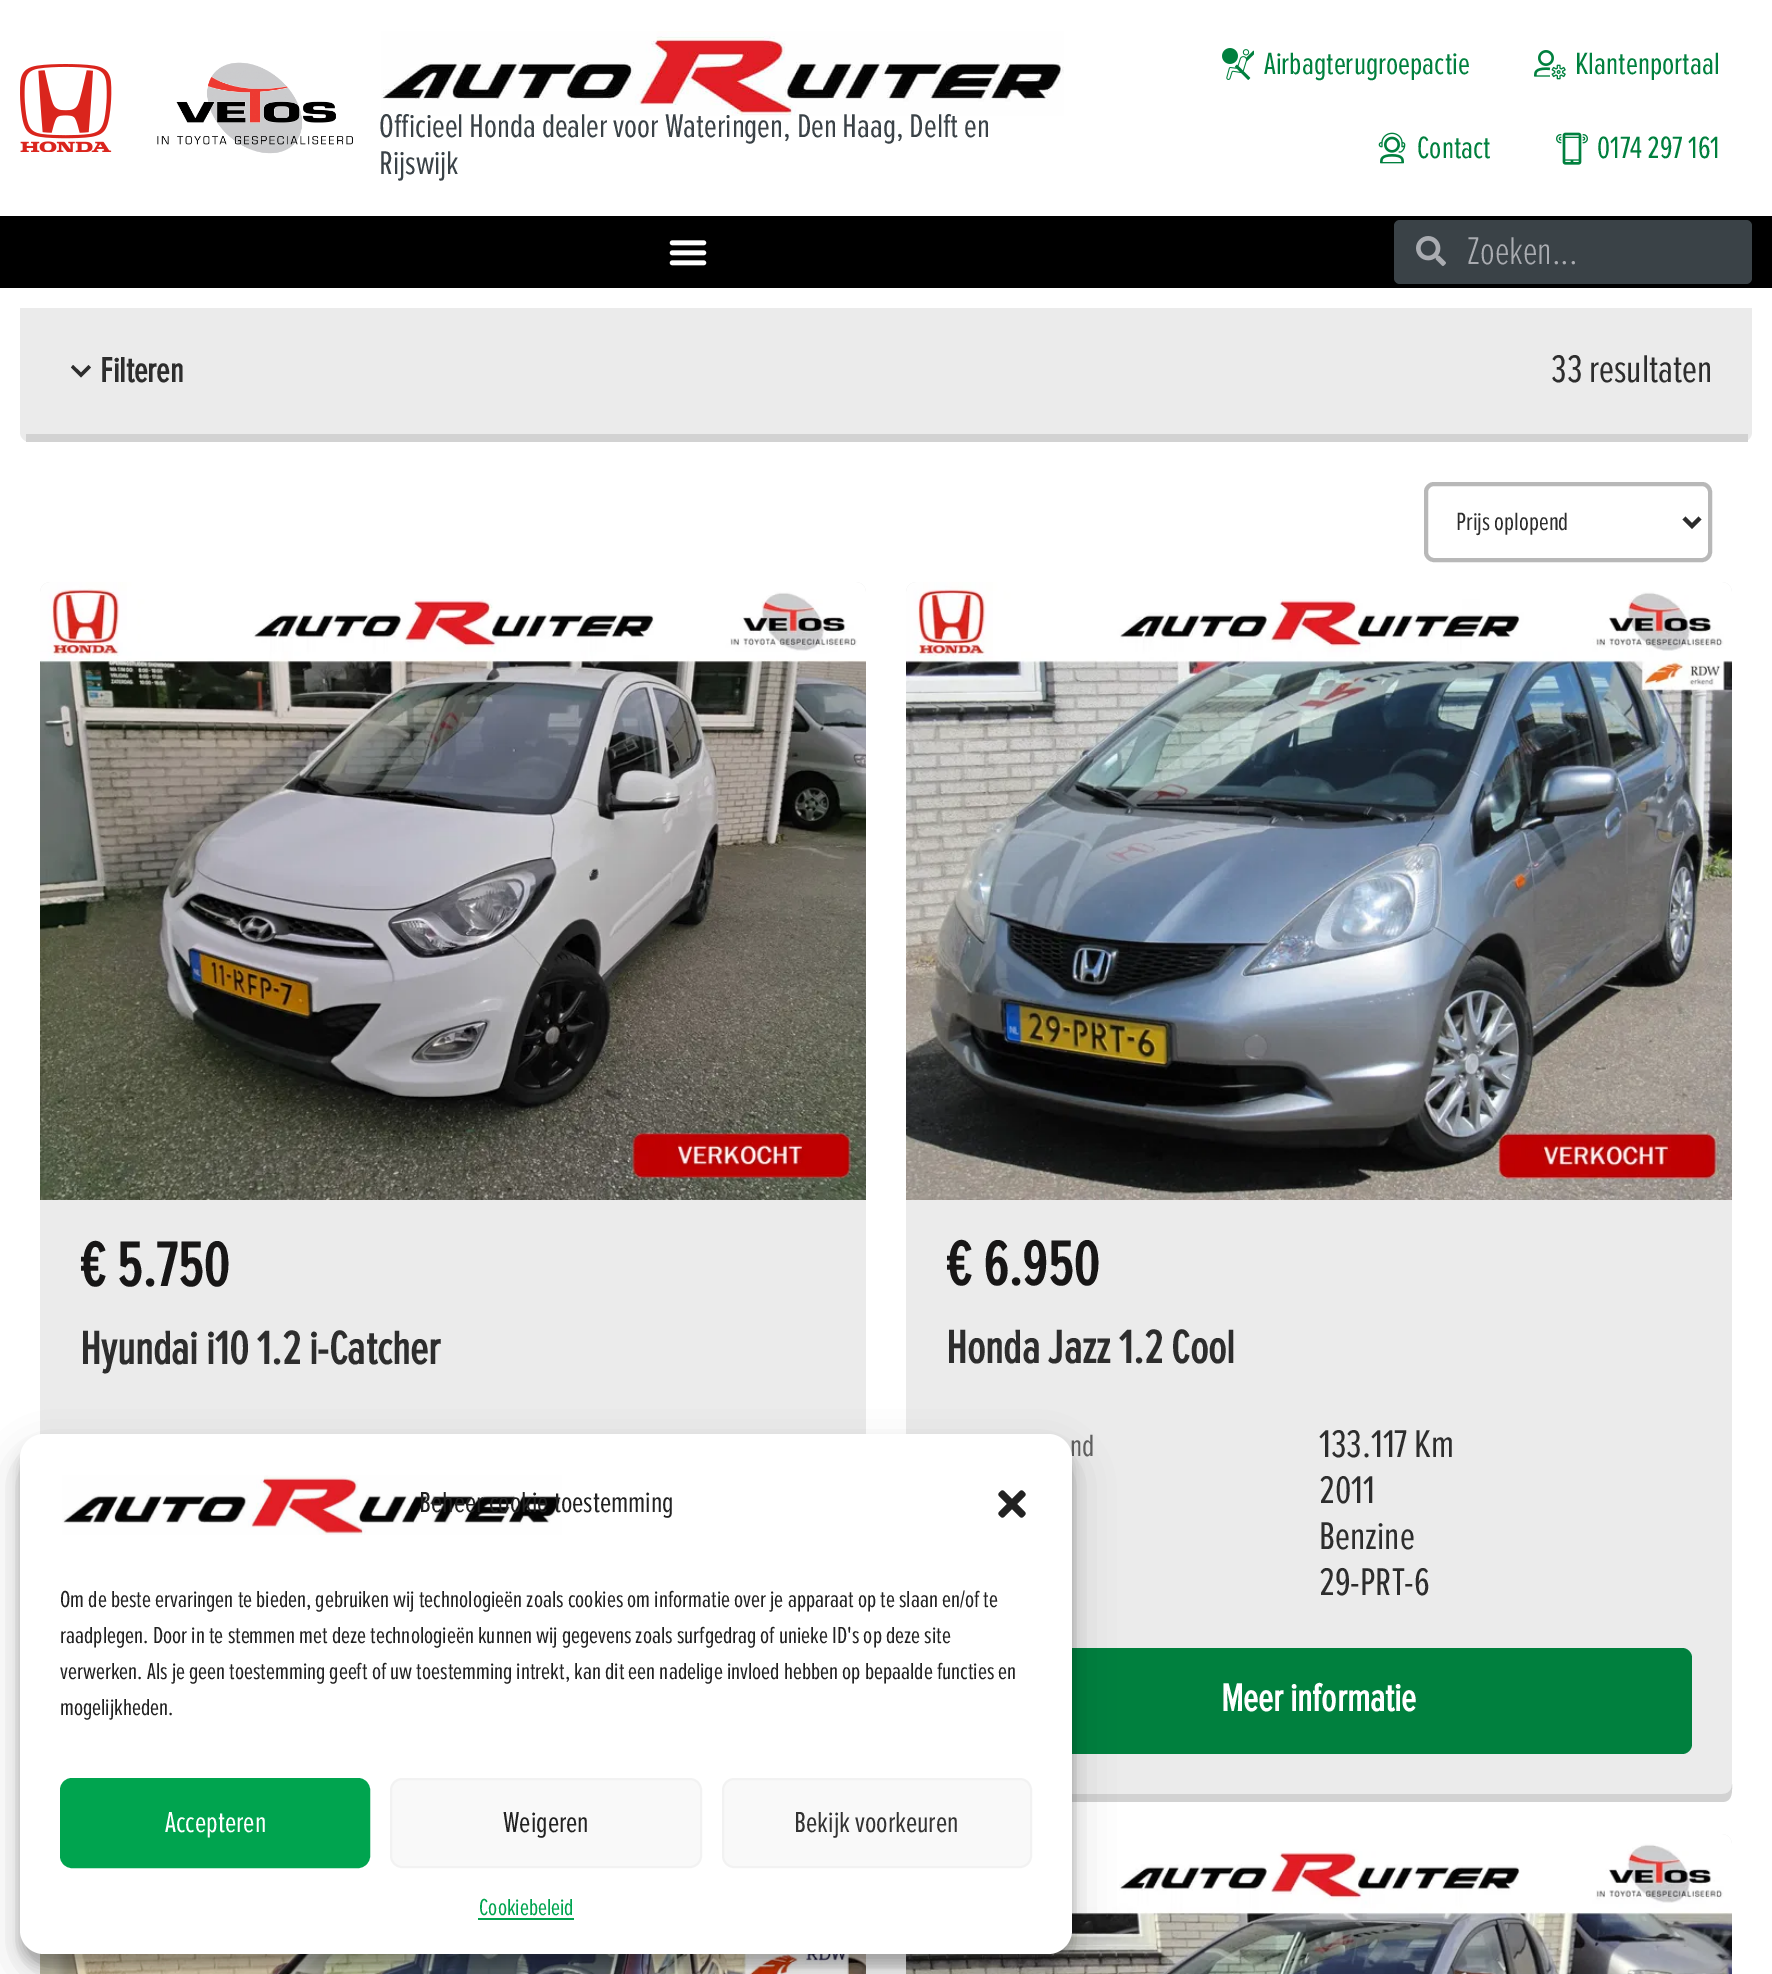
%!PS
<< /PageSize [1772 1974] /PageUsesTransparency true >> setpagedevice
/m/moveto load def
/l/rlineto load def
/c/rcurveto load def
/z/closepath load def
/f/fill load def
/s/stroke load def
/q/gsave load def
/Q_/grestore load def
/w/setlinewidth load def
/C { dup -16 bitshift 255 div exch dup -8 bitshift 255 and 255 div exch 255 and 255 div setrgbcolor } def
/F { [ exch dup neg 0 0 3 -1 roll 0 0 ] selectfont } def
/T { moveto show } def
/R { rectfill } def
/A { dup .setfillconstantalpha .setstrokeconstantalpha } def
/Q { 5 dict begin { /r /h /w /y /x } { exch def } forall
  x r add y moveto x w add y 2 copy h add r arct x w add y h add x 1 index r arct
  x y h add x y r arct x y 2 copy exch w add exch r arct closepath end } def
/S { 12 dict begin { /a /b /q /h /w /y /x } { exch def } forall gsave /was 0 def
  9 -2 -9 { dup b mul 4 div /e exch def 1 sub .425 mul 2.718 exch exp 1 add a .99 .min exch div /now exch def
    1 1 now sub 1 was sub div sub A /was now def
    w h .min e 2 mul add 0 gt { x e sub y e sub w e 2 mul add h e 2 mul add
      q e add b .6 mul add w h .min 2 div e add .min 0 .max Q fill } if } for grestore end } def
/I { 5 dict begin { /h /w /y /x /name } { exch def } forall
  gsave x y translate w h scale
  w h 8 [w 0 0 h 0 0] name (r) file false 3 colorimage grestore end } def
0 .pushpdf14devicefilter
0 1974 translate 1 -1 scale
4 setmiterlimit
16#FFFFFF C
0 0 1772 1974 R
(1.rgb) 20 64 92 88 I
(2.rgb) 157 62 196 92 I
(3.rgb) 381 31 683 85 I
/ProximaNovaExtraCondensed-Regular 34 F
16#3A4247 C
(Officieel Honda dealer voor Wateringen, Den Haag, Delft en) 379 137 T
(Rijswijk) 379 174 T
(4.rgb) 1222 48 32 32 I
/ProximaNovaExtraCondensed-Regular 32 F
16#00803E C
(Airbagterugroepactie) 1264 74 T
(5.rgb) 1534 50 32 30 I
(Klantenportaal) 1575 74 T
(6.rgb) 1378 132 28 32 I
(Contact) 1417 158 T
(7.rgb) 1556 132 32 33 I
(0174 297 161) 1597 158 T
16#000000 C
0 216 1772 72 R
(8.rgb) 669 240 38 26 I
16#3A4247 C
1394 220 358 64 6 Q f
(9.rgb) 1416 236 30 30 I
/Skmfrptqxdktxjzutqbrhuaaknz-Light 40 F
16#AAACB1 C
(Zoeken...) 1467 264 T
16#EBEBEB C
20 308 1732 134 10 Q f
16#D2D2D2 C
26 434 1722 8 R
16#EBEBEB C
20 308 1732 126 R
16#2D2D2D C
91 367.5 m -2.5 -2.5 l -7.5 7.5 l -8 -7.5 l -2 2.5 l 10 10 l z f
/ProximaNovaExtraCondensed-Bold 36 F
(Filteren) 100 382 T
/ProximaNovaExtraCondensed-Regular 40 F
(33 resultaten) 1551 382 T
16#B8B8B8 C
4 w
1426 484 284 76 8 Q s
16#2D2D2D C
1684 518 m 8 8 l 8 -8 l s
/ProximaNovaExtraCondensed-Regular 26 F
(Prijs oplopend) 1456 530 T
16#EBEBEB C
40 582 826 1212 10 Q f
(10.rgb) 40 582 826 618 I
/ProximaNovaExtraCondensed-Bold 64 F
16#171616 C
(€ 5.750) 80 1286 T
/ProximaNovaExtraCondensed-Bold 48 F
16#2D2D2D C
(Hyundai i10 1.2 i-Catcher) 80 1364 T
16#EBEBEB C
906 582 826 1212 10 Q f
(11.rgb) 906 582 826 618 I
/ProximaNovaExtraCondensed-Bold 64 F
16#171616 C
(€ 6.950) 946 1285 T
/ProximaNovaExtraCondensed-Bold 48 F
16#2D2D2D C
(Honda Jazz 1.2 Cool) 946 1363 T
16#D2D2D2 C
906 1784 m 0 7 -1 18 10 18 c 806 0 l 11 0 10 -11 10 -18 c 0 6 -4 10 -10 10 c -806 0 l -6 0 -10 -4 -10 -10 c z f
/ProximaNovaExtraCondensed-Regular 32 F
16#606060 C
(nd) 1070 1456 T
/ProximaNovaExtraCondensed-Regular 40 F
16#2D2D2D C
(133.117 Km) 1319 1457 T
(2011) 1319 1503 T
(Benzine) 1319 1549 T
(29-PRT-6) 1319 1595 T
16#00803E C
946 1648 746 106 10 Q f
/ProximaNovaExtraCondensed-Bold 40 F
16#FFFFFF C
(Meer informatie) 1221 1711 T
(12.rgb) 40 1953 826 21 I
16#EBEBEB C
906 1834 826 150 10 Q f
(13.rgb) 906 1834 826 140 I
16#000000 C
20 1446 1052 520 24 6 .23 S
20 1454 1052 520 24 20 .19 S
16#FFFFFF C
20 1434 1052 520 24 Q f
(14.rgb) 62 1475 500 60 I
(15.rgb) 998 1490 28 28 I
/ProximaNovaExtraCondensed-Regular 30 F
16#222222 C
(Beheer cookie toestemming) 419 1512 T
/ProximaNovaExtraCondensed-Regular 24 F
(Om de beste ervaringen te bieden, gebruiken wij technologieën zoals cookies om informatie over je apparaat op te slaan en/of te) 60 1607 T
(raadplegen. Door in te stemmen met deze technologieën kunnen wij gegevens zoals surfgedrag of unieke ID's op deze site) 60 1643 T
(verwerken. Als je geen toestemming geeft of uw toestemming intrekt, kan dit een nadelige invloed hebben op bepaalde functies en) 60 1679 T
(mogelijkheden.) 60 1715 T
16#00A44F C
61 1779 308 88 11 Q q f Q_
2 w
s
/ProximaNovaExtraCondensed-Regular 30 F
16#FFFFFF C
(Accepteren) 165 1832 T
16#F9F9F9 C
391 1779 310 88 11 Q q f Q_
16#F2F2F2 C
s
16#222222 C
(Weigeren) 503 1832 T
16#F9F9F9 C
723 1779 308 88 11 Q q f Q_
16#F2F2F2 C
s
16#333333 C
(Bekijk voorkeuren) 794 1832 T
/ProximaNovaExtraCondensed-Regular 24 F
16#00A44F C
(Cookiebeleid) 479 1915 T
478 1918 96 2 R
.poppdf14devicefilter showpage
